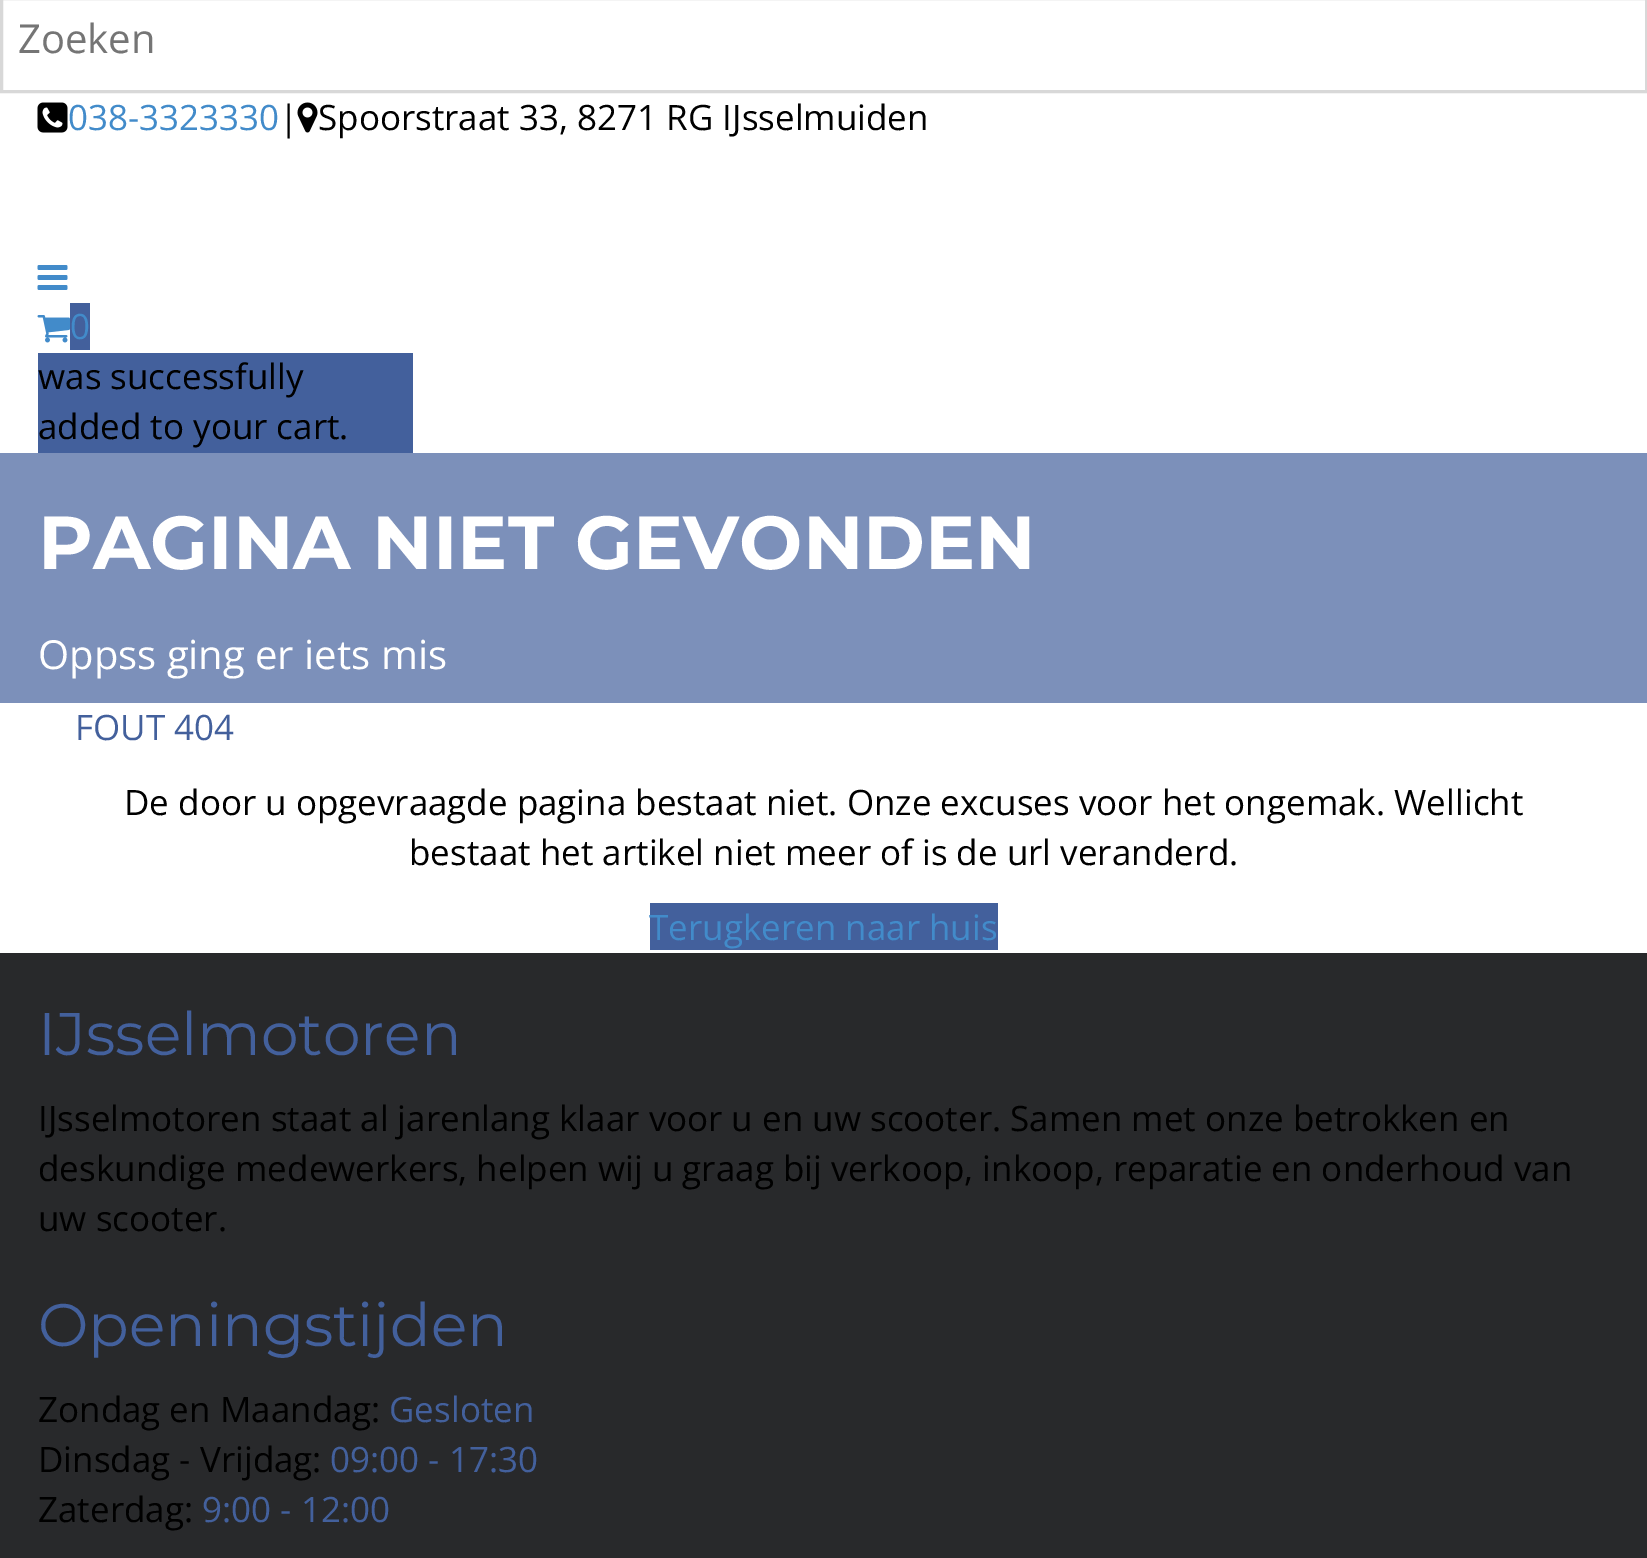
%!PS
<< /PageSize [1647 1558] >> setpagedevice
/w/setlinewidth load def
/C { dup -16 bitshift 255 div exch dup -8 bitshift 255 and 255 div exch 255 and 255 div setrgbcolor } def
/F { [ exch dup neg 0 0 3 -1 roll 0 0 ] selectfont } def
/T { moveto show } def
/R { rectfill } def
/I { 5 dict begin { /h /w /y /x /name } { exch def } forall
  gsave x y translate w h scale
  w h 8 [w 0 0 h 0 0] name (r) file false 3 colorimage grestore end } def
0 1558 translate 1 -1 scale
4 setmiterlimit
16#FFFFFF C
0 0 1647 1558 R
16#D8D8D8 C
3 w
1.5 -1.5 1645 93 rectstroke
/OpenSans-Regular 40 F
16#757575 C
(Zoeken) 18 53 T
(1.rgb) 37 102 31 31 I
/OpenSans-Regular 35 F
16#428BCA C
(038-3323330) 68 130 T
16#000000 C
(|) 279 130 T
(2.rgb) 297 102 21 31 I
(Spoorstraat 33, 8271 RG IJsselmuiden) 318 130 T
(3.rgb) 37 265 31 25 I
(4.rgb) 37 315 33 28 I
16#43609C C
70 303 20 47 R
16#428BCA C
(0) 70 339 T
16#43609C C
38 353 375 100 R
16#000000 C
(was successfully) 38 389 T
(added to your cart.) 38 439 T
16#7C90BA C
0 453 1647 250 R
/Montserrat-Bold 75 F
16#FFFFFF C
(PAGINA NIET GEVONDEN) 38 569 T
/OpenSans-Regular 40 F
(Oppss ging er iets mis) 38 669 T
/OpenSans-Regular 35 F
16#43609C C
(FOUT 404) 75 740 T
16#000000 C
(De door u opgevraagde pagina bestaat niet. Onze excuses voor het ongemak. Wellicht) 124 815 T
(bestaat het artikel niet meer of is de url veranderd.) 409 865 T
16#43609C C
650 903 348 47 R
16#428BCA C
(Terugkeren naar huis) 649 940 T
16#28292B C
0 953 1647 605 R
/Montserrat-Regular 60 F
16#43609C C
(IJsselmotoren) 38 1055 T
/OpenSans-Regular 35 F
16#000000 C
(IJsselmotoren staat al jarenlang klaar voor u en uw scooter. Samen met onze betrokken en) 38 1131 T
(deskundige medewerkers, helpen wij u graag bij verkoop, inkoop, reparatie en onderhoud van) 38 1181 T
(uw scooter.) 38 1231 T
/Montserrat-Regular 60 F
16#43609C C
(Openingstijden) 38 1346 T
/OpenSans-Regular 35 F
16#000000 C
(Zondag en Maandag:) 38 1422 T
16#43609C C
(Gesloten) 389 1422 T
16#000000 C
(Dinsdag - Vrijdag:) 38 1472 T
16#43609C C
(09:00 - 17:30) 330 1472 T
16#000000 C
(Zaterdag:) 38 1522 T
16#43609C C
(9:00 - 12:00) 202 1522 T
showpage
